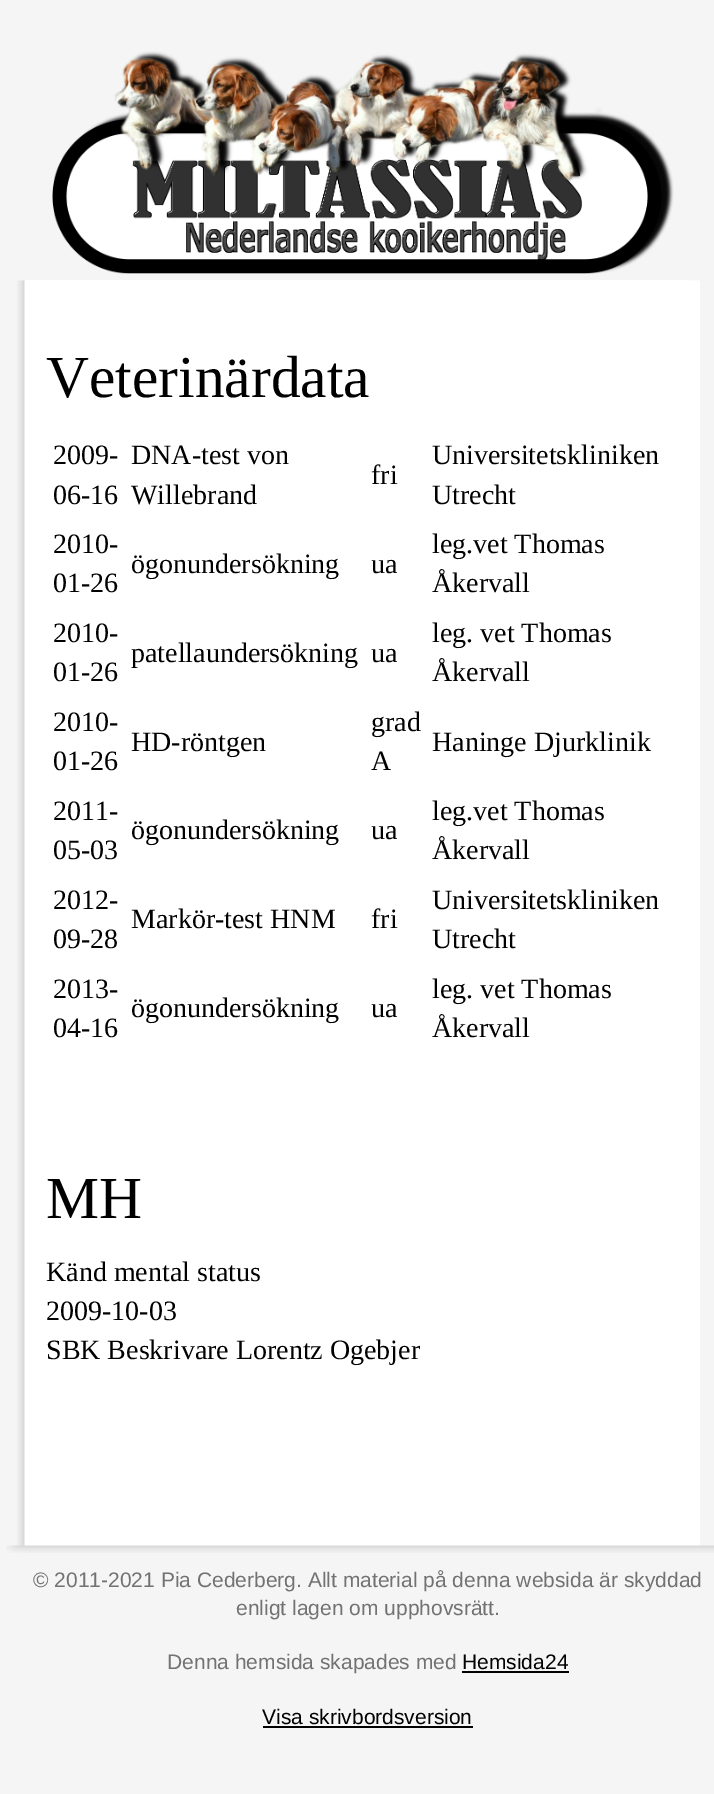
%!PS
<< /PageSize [714 1794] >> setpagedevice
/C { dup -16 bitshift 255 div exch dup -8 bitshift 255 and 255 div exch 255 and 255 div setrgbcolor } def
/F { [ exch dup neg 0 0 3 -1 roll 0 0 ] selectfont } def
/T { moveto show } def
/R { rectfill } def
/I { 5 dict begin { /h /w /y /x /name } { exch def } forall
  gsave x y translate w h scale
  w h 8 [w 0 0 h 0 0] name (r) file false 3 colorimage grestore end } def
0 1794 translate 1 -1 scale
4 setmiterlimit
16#F5F5F5 C
0 0 714 1794 R
(1.rgb) 52 51 622 223 I
(2.rgb) 17 280 683 1266 I
16#FFFFFF C
25 280 665 1 R
/LiberationSerif-Regular 59.5 F
16#000000 C
(Veterinärdata) 46 397 T
/LiberationSerif-Regular 28 F
(2009-) 53 464 T
(06-16) 53 504 T
(DNA-test von) 131 464 T
(Willebrand) 131 504 T
(fri) 371 484 T
(Universitetskliniken) 432 464 T
(Utrecht) 432 504 T
(2010-) 53 553 T
(01-26) 53 592 T
(ögonundersökning) 131 573 T
(ua) 371 573 T
(leg.vet Thomas) 432 553 T
(Åkervall) 432 592 T
(2010-) 53 642 T
(01-26) 53 681 T
(patellaundersökning) 131 662 T
(ua) 371 662 T
(leg. vet Thomas) 432 642 T
(Åkervall) 432 681 T
(2010-) 53 731 T
(01-26) 53 770 T
(HD-röntgen) 131 751 T
(grad) 371 731 T
(A) 371 770 T
(Haninge Djurklinik) 432 751 T
(2011-) 53 820 T
(05-03) 53 859 T
(ögonundersökning) 131 839 T
(ua) 371 839 T
(leg.vet Thomas) 432 820 T
(Åkervall) 432 859 T
(2012-) 53 909 T
(09-28) 53 948 T
(Markör-test HNM) 131 928 T
(fri) 371 928 T
(Universitetskliniken) 432 909 T
(Utrecht) 432 948 T
(2013-) 53 998 T
(04-16) 53 1037 T
(ögonundersökning) 131 1017 T
(ua) 371 1017 T
(leg. vet Thomas) 432 998 T
(Åkervall) 432 1037 T
/LiberationSerif-Regular 59.5 F
(MH) 46 1218 T
/LiberationSerif-Regular 28 F
(Känd mental status) 46 1281 T
(2009-10-03) 46 1320 T
(SBK Beskrivare Lorentz Ogebjer) 46 1359 T
(3.rgb) 6 1545 708 8 I
/LiberationSans-Regular 21 F
16#737272 C
(© 2011-2021 Pia Cederberg. Allt material på denna websida är skyddad) 33 1587 T
(enligt lagen om upphovsrätt.) 236 1615 T
(Denna hemsida skapades med) 167 1669 T
16#000000 C
(Hemsida24) 462 1669 T
462 1671 107 2 R
(Visa skrivbordsversion) 262 1724 T
263 1726 210 2 R
showpage
